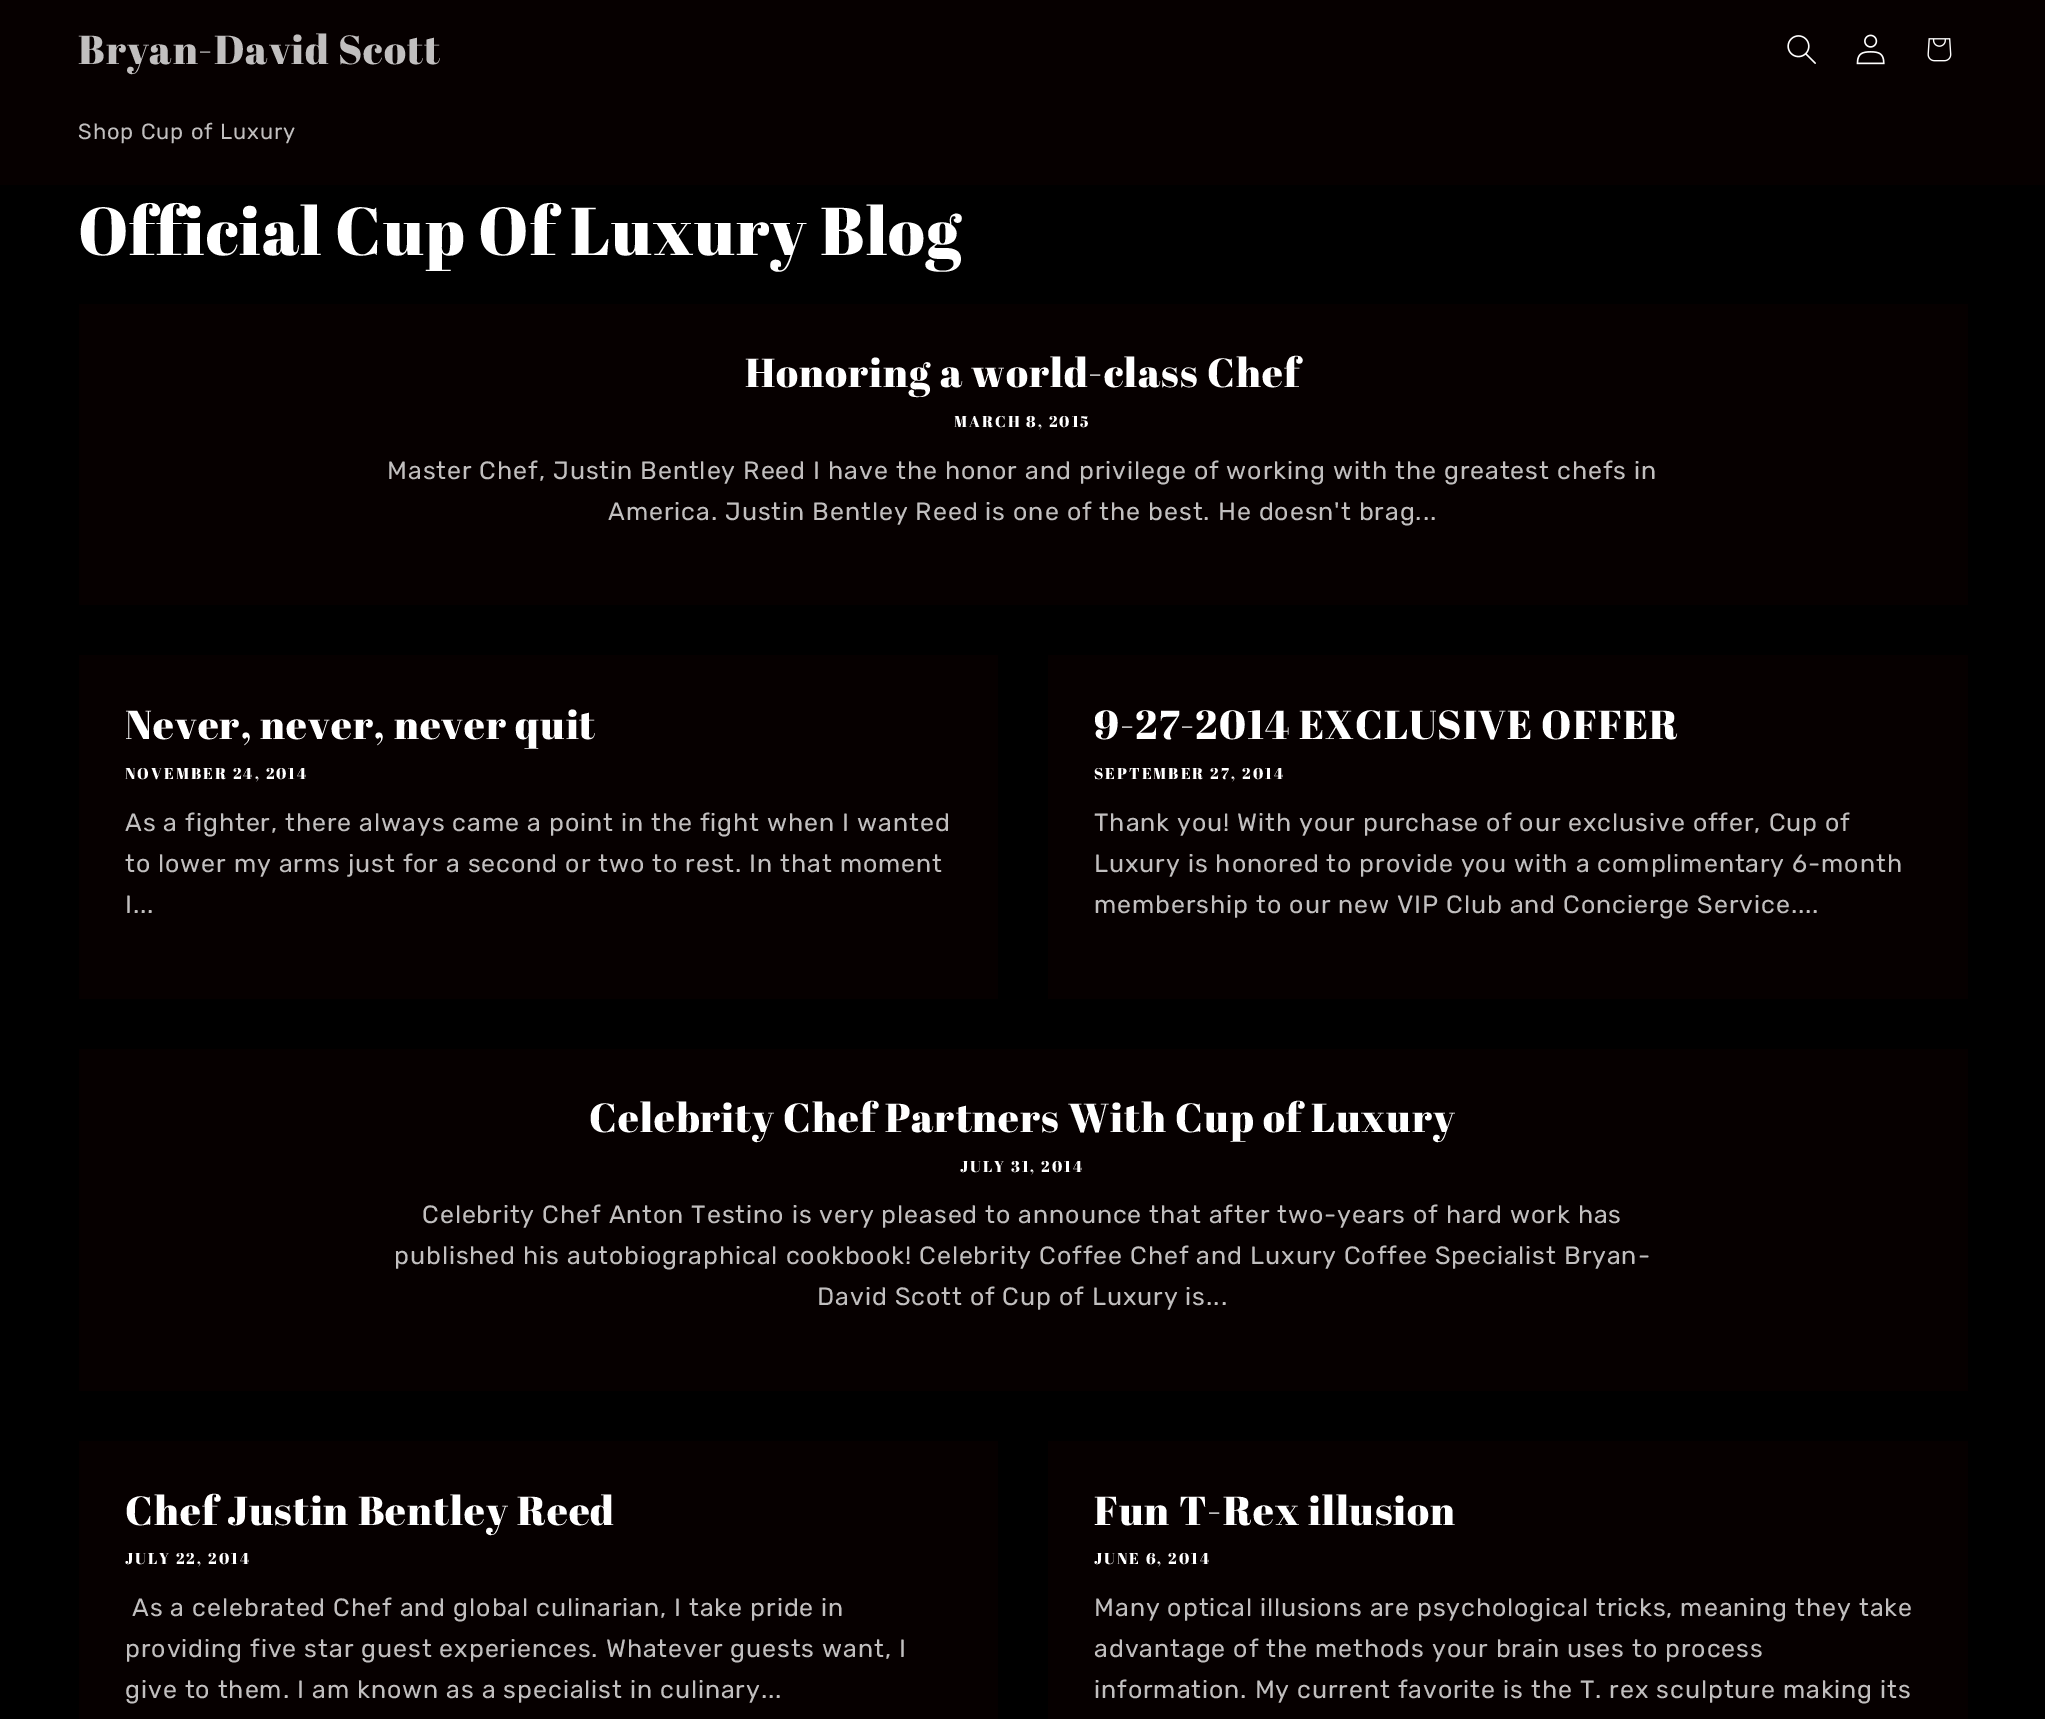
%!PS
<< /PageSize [2045 1719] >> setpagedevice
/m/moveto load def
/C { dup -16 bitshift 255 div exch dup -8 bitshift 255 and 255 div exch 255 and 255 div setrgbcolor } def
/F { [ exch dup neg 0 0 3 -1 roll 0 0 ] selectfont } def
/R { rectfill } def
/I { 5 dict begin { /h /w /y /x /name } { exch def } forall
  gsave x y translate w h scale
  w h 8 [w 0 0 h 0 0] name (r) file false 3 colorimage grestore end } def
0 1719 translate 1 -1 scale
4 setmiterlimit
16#000000 C
0 0 2045 1719 R
16#060000 C
0 0 2045 185 R
/AbrilFatface-Regular 40.5 F
16#C1BFBF C
78 64 m 1 0 (Bryan-David Scott) ashow
(1.rgb) 1787 35 29 29 I
(2.rgb) 1856 34 29 31 I
(3.rgb) 1927 38 25 24 I
/Rubik-Regular 21.9 F
78 139 m .94 0 (Shop Cup of Luxury) ashow
/AbrilFatface-Regular 67.5 F
16#FFFFFF C
78 255 m 1 0 (Official Cup Of Luxury Blog) ashow
16#060000 C
79 304 1889 301 R
/AbrilFatface-Regular 40.5 F
16#FFFFFF C
745 387 m 1 0 (Honoring a world-class Chef) ashow
/AbrilFatface-Regular 15.6 F
954 427 m 2 0 (MARCH 8, 2015) ashow
/Rubik-Regular 25 F
16#C1BFBF C
387 479 m .94 0 (Master Chef, Justin Bentley Reed I have the honor and privilege of working with the greatest chefs in) ashow
608 520 m .94 0 (America. Justin Bentley Reed is one of the best. He doesn't brag...) ashow
16#060000 C
79 655 919 344 R
/AbrilFatface-Regular 40.5 F
16#FFFFFF C
125 739 m 1 0 (Never, never, never quit) ashow
/AbrilFatface-Regular 15.6 F
125 779 m 2 0 (NOVEMBER 24, 2014) ashow
/Rubik-Regular 25 F
16#C1BFBF C
125 831 m .94 0 (As a fighter, there always came a point in the fight when I wanted) ashow
125 872 m .94 0 (to lower my arms just for a second or two to rest. In that moment) ashow
125 913 m .94 0 (I...) ashow
16#060000 C
1048 655 920 344 R
/AbrilFatface-Regular 40.5 F
16#FFFFFF C
1094 739 m 1 0 (9-27-2014 EXCLUSIVE OFFER) ashow
/AbrilFatface-Regular 15.6 F
1094 779 m 2 0 (SEPTEMBER 27, 2014) ashow
/Rubik-Regular 25 F
16#C1BFBF C
1094 831 m .94 0 (Thank you! With your purchase of our exclusive offer, Cup of) ashow
1094 872 m .94 0 (Luxury is honored to provide you with a complimentary 6-month) ashow
1094 913 m .94 0 (membership to our new VIP Club and Concierge Service....) ashow
16#060000 C
79 1049 1889 342 R
/AbrilFatface-Regular 40.5 F
16#FFFFFF C
589 1132 m 1 0 (Celebrity Chef Partners With Cup of Luxury) ashow
/AbrilFatface-Regular 15.6 F
960 1172 m 2 0 (JULY 31, 2014) ashow
/Rubik-Regular 25 F
16#C1BFBF C
422 1223 m .94 0 (Celebrity Chef Anton Testino is very pleased to announce that after two-years of hard work has) ashow
394 1264 m .94 0 (published his autobiographical cookbook! Celebrity Coffee Chef and Luxury Coffee Specialist Bryan-) ashow
817 1305 m .94 0 (David Scott of Cup of Luxury is...) ashow
16#060000 C
79 1441 919 278 R
/AbrilFatface-Regular 40.5 F
16#FFFFFF C
125 1525 m 1 0 (Chef Justin Bentley Reed) ashow
/AbrilFatface-Regular 15.6 F
125 1564 m 2 0 (JULY 22, 2014) ashow
/Rubik-Regular 25 F
16#C1BFBF C
132 1616 m .94 0 (As a celebrated Chef and global culinarian, I take pride in) ashow
125 1657 m .94 0 (providing five star guest experiences. Whatever guests want, I) ashow
125 1698 m .94 0 (give to them. I am known as a specialist in culinary...) ashow
16#060000 C
1048 1441 920 278 R
/AbrilFatface-Regular 40.5 F
16#FFFFFF C
1094 1525 m 1 0 (Fun T-Rex illusion) ashow
/AbrilFatface-Regular 15.6 F
1094 1564 m 2 0 (JUNE 6, 2014) ashow
/Rubik-Regular 25 F
16#C1BFBF C
1094 1616 m .94 0 (Many optical illusions are psychological tricks, meaning they take) ashow
1094 1657 m .94 0 (advantage of the methods your brain uses to process) ashow
1094 1698 m .94 0 (information. My current favorite is the T. rex sculpture making its) ashow
showpage
